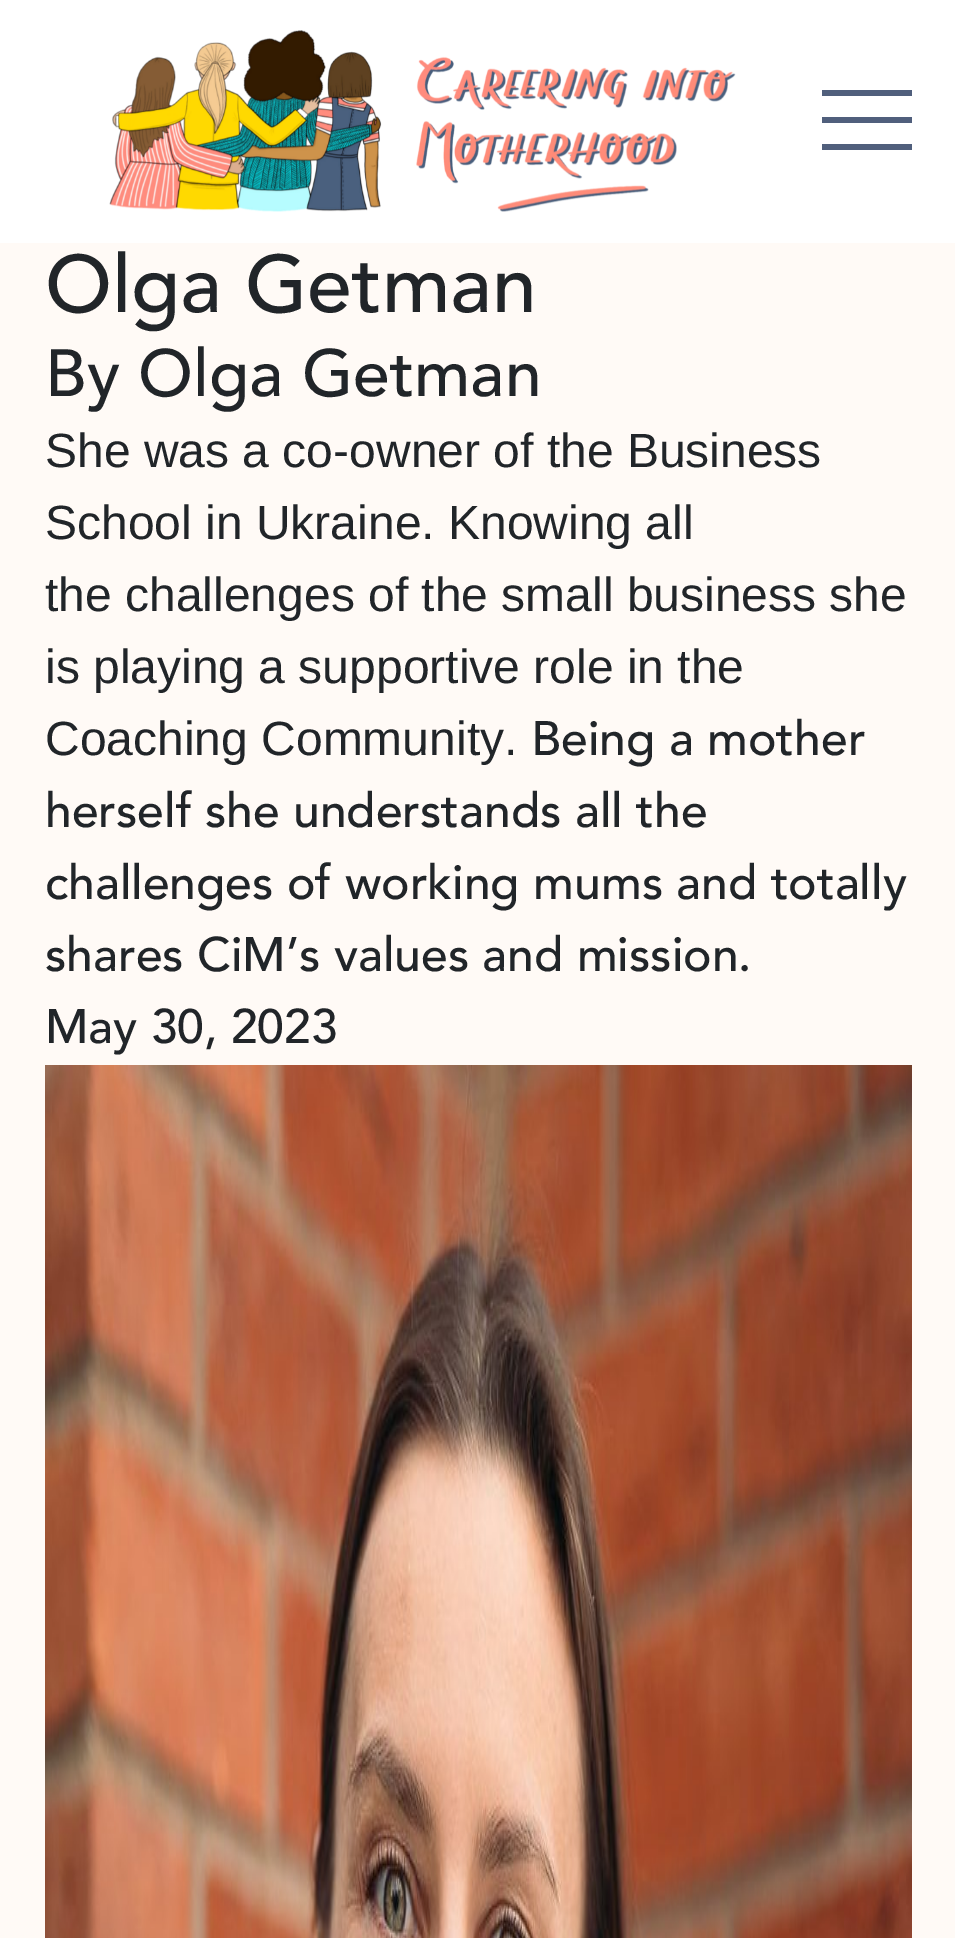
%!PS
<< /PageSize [955 1938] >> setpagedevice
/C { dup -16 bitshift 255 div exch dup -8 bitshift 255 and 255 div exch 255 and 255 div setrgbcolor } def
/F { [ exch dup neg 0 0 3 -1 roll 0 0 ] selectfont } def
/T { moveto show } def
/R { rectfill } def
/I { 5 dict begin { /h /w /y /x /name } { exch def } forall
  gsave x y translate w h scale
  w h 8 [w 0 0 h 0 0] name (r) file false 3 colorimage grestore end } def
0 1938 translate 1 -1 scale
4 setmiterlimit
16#FFFAF6 C
0 0 955 1938 R
16#FFFFFF C
0 0 955 243 R
(1.rgb) 109 30 627 182 I
16#505F7C C
822 90 90 6 R
822 117 90 6 R
822 144 90 6 R
/Avenir-Medium 80.5 F
16#212529 C
(Olga Getman) 45 312 T
/Avenir-Medium 66 F
(By Olga Getman) 45 396 T
/LiberationSans-Regular 48 F
(She was a co-owner of the Business) 45 467 T
(School in Ukraine. Knowing all) 45 539 T
(the challenges of the small business she) 45 611 T
(is playing a supportive role in the) 45 683 T
(Coaching Community.) 45 755 T
/Avenir-Medium 48 F
(Being a mother) 531 755 T
(herself she understands all the) 45 827 T
(challenges of working mums and totally) 45 899 T
(shares CiM’s values and mission.) 45 971 T
(May 30, 2023) 45 1043 T
(2.rgb) 45 1065 867 873 I
showpage
